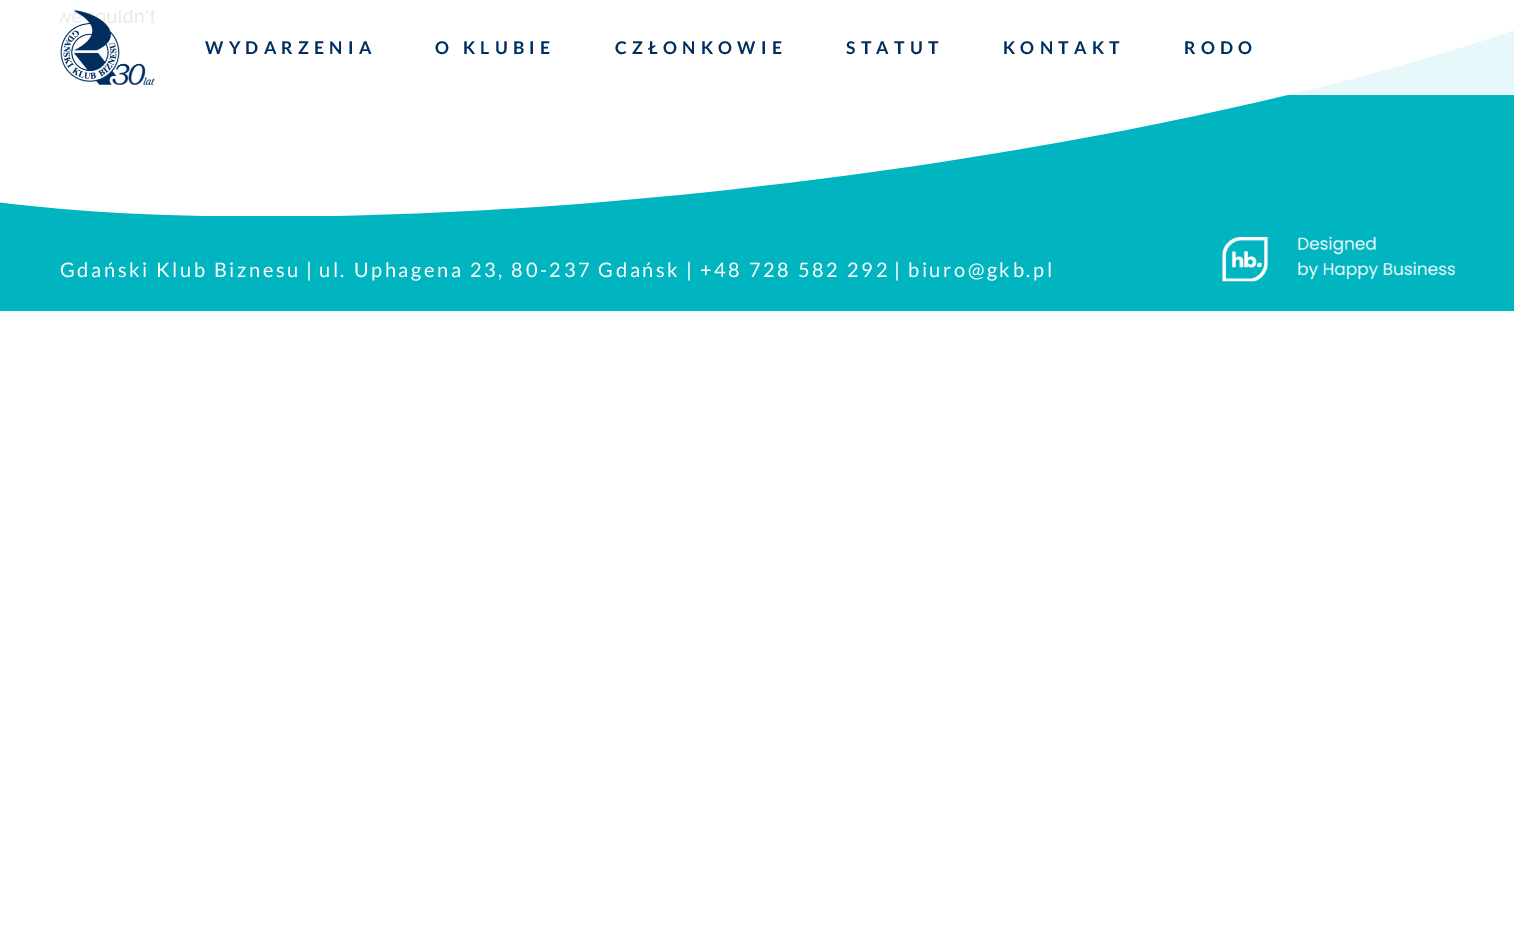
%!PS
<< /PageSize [1514 947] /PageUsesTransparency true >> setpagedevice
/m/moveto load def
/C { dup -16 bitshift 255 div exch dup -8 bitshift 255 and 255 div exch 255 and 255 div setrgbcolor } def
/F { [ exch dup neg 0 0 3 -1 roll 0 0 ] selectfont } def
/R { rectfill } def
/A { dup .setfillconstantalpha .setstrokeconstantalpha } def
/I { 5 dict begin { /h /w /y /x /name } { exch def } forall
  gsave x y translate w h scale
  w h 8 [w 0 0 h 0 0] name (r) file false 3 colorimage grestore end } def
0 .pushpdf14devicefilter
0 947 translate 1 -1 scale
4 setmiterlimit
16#FFFFFF C
0 0 1514 947 R
(2.rgb) 0 30 1514 186 I
0.9 A
1288 30 226 65 R
1 A
(1.rgb) 60 10 95 75 I
/Lato-Bold 17.5 F
16#002E5F C
205 54 m 5.25 0 (WYDARZENIA) ashow
435 54 m 5.25 0 (O KLUBIE) ashow
615 54 m 5.25 0 (CZŁONKOWIE) ashow
846 54 m 5.25 0 (STATUT) ashow
1003 54 m 5.25 0 (KONTAKT) ashow
1184 54 m 5.25 0 (RODO) ashow
16#00B5C0 C
0 216 1514 95 R
/Lato-Regular 20 F
16#FFFFFF C
60 277 m 2.6 0 (Gdański Klub Biznesu) ashow
306 277 m 2.6 0 (|) ashow
319 277 m 2.6 0 (ul. Uphagena 23, 80-237 Gdańsk) ashow
686 277 m 2.6 0 (|) ashow
700 277 m 2.6 0 (+48 728 582 292) ashow
894 277 m 2.6 0 (|) ashow
908 277 m 2.6 0 (biuro@gkb.pl) ashow
(3.rgb) 1222 236 233 46 I
.poppdf14devicefilter showpage
